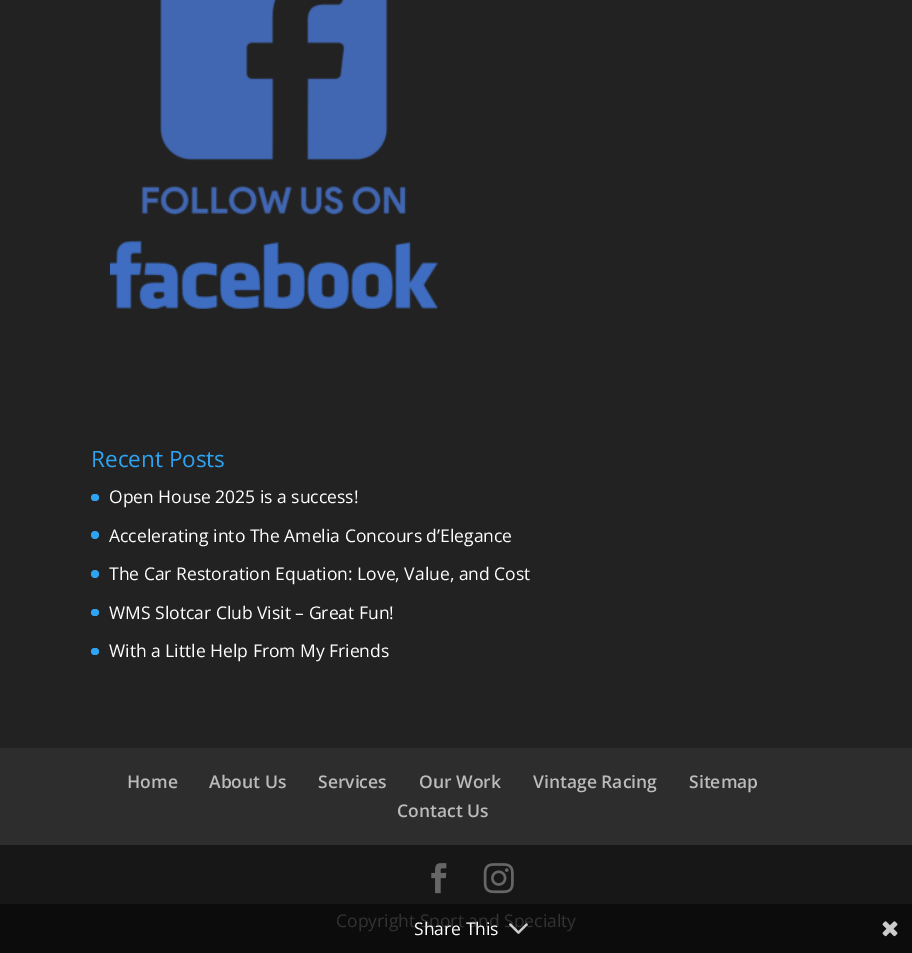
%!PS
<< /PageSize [912 953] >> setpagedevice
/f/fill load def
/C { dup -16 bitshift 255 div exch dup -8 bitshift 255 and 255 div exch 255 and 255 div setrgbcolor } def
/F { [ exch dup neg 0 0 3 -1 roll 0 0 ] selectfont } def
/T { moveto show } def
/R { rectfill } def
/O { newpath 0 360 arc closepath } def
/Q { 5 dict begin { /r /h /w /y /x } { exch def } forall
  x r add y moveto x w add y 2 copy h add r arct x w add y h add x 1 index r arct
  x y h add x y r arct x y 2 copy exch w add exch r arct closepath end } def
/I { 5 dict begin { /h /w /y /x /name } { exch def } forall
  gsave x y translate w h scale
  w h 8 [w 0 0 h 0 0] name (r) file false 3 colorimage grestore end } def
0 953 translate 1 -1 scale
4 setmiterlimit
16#222222 C
0 0 912 953 R
(1.rgb) 110 0 328 309 I
/OpenSans-Regular 22.5 F
16#2EA3F2 C
(Recent Posts) 91 467 T
91 494 8 7 3.5 Q f
/OpenSans-Regular 17.5 F
16#FFFFFF C
(Open House 2025 is a success!) 109 503 T
16#2EA3F2 C
95 535 4 O f
16#FFFFFF C
(Accelerating into The Amelia Concours d’Elegance) 109 542 T
16#2EA3F2 C
95 574 4 O f
16#FFFFFF C
(The Car Restoration Equation: Love, Value, and Cost) 109 580 T
16#2EA3F2 C
91 609 8 7 3.5 Q f
16#FFFFFF C
(WMS Slotcar Club Visit – Great Fun!) 109 619 T
16#2EA3F2 C
91 648 8 7 3.5 Q f
16#FFFFFF C
(With a Little Help From My Friends) 109 657 T
16#2D2D2D C
0 748 912 97 R
/OpenSans-SemiBold 17.5 F
16#BBBBBB C
(Home) 127 788 T
(About Us) 209 788 T
(Services) 318 788 T
(Our Work) 419 788 T
(Vintage Racing) 533 788 T
(Sitemap) 689 788 T
(Contact Us) 397 817 T
16#171717 C
0 845 912 59 R
16#0C0C0C C
0 904 912 49 R
(2.rgb) 431 863 16 31 I
(3.rgb) 483 863 31 31 I
/OpenSans-Regular 17.5 F
16#333333 C
(Copyright Sport and Specialty) 336 927 T
16#FFFFFF C
(Share This) 414 935 T
(4.rgb) 509 923 19 11 I
(5.rgb) 882 921 16 16 I
showpage
